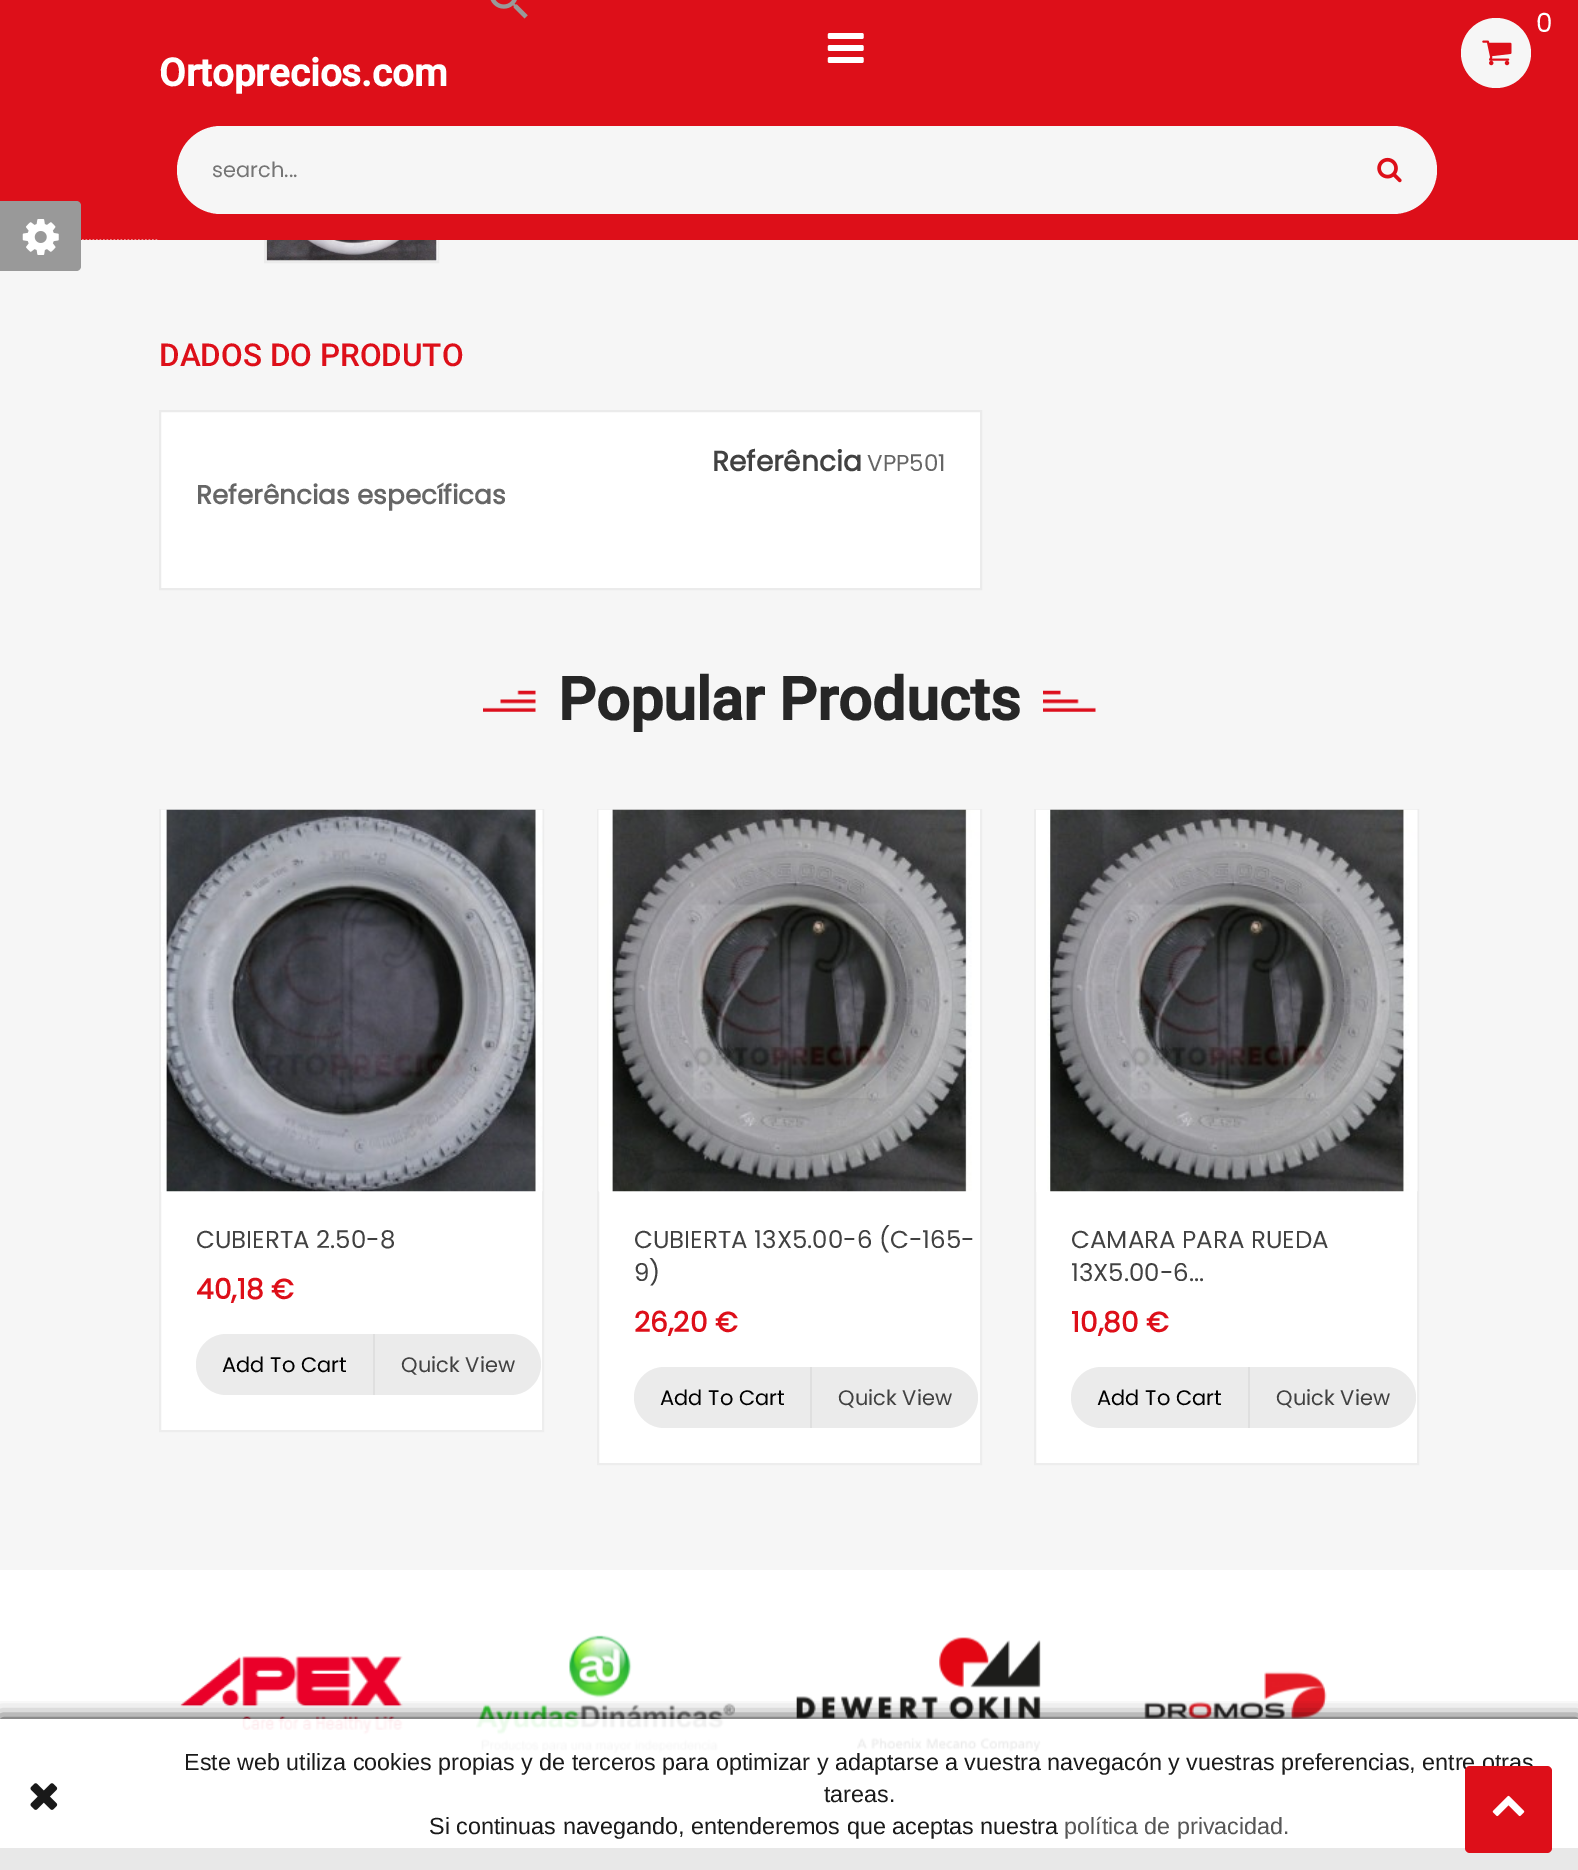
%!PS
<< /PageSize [1578 1870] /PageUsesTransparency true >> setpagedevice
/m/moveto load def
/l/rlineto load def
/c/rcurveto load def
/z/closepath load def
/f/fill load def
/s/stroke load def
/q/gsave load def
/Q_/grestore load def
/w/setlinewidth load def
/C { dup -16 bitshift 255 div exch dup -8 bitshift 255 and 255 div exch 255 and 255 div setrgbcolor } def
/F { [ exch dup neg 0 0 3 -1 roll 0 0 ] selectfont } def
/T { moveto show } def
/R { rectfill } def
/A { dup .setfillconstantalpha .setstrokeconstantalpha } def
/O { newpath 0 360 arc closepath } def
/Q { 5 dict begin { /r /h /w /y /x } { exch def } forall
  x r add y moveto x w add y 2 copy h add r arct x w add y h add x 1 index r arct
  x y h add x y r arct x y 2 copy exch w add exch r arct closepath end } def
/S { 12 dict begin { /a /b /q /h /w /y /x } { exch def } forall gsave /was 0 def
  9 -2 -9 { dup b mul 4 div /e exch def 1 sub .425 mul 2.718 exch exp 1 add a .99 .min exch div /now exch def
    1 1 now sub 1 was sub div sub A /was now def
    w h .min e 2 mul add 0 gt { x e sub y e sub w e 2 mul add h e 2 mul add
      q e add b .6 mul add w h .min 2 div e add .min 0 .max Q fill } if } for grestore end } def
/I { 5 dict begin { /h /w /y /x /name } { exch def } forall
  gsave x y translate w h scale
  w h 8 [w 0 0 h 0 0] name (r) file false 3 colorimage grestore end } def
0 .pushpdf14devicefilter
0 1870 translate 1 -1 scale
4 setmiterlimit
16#F6F6F6 C
0 0 1578 1870 R
16#EBEBEB C
2 w
265 89 173 173 rectstroke
16#DD0F19 C
0 0 1578 240 R
16#F6F6F6 C
1.8 w
[1.75 1.75] 0 setdash
-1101 240.5 m 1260 0 l s
16#999999 C
0 201 m 76 0 l 3 0 5 2 5 5 c 0 60 l 0 3 -2 5 -5 5 c -76 0 l z f
(1.rgb) 22 219 37 36 I
16#F6F6F6 C
1496 53 35 O f
(2.rgb) 1482 40 30 26 I
/Poppins-Regular 26.25 F
16#FFFFFF C
(0) 1536 32 T
(3.rgb) 827 33 37 30 I
/Roboto-Bold 38.5 F
(Ortoprecios.com) 159 86 T
16#F6F6F6 C
177 126 1260 88 44 Q f
/Poppins-Regular 21 F
16#757575 C
(search...) 212 177 T
(4.rgb) 1377 157 25 26 I
(5.rgb) 490 0 38 19 I
(6.rgb) 266 240 172 21 I
/Roboto-Medium 31.5 F
16#DD0F19 C
(DADOS DO PRODUTO) 159 366 T
16#FFFFFF C
160 411 m 821 0 l 0 178 l -821 0 l z q f Q_
16#EBEBEB C
2 w
[] 0 setdash
s
/Poppins-Bold 28 F
16#414141 C
(Referência) 712 471 T
/Poppins-Regular 23 F
16#666666 C
(VPP501) 867 471 T
/Poppins-Bold 26.25 F
(Referências específicas) 196 504 T
(7.rgb) 483 690 53 22 I
/Roboto-Bold 59.5 F
16#262626 C
(Popular Products) 558 720 T
(8.rgb) 1043 690 53 22 I
16#FFFFFF C
161 1191 381 239 R
16#EDEDED C
160 810 383 621 rectstroke
(9.rgb) 161 809 382 383 I
/Poppins-Regular 24.5 F
16#414141 C
(CUBIERTA 2.50-8) 196 1248 T
/Poppins-Bold 28 F
16#DD0F19 C
(40,18 €) 196 1299 T
16#EBEBEB C
226.5 1334 m 146.5 0 l 0 61 l -146.5 0 l -17 0 -30.5 -13.5 -30.5 -30.5 c 0 -17 13.5 -30.5 30.5 -30.5 c z f
16#DFDFDF C
373 1334 2 61 R
/Poppins-Regular 21 F
16#000000 C
(Add To Cart) 222 1372 T
16#EBEBEB C
375 1334 m 135.5 0 l 17 0 30.5 13.5 30.5 30.5 c 0 17 -13.5 30.5 -30.5 30.5 c -135.5 0 l z f
16#414141 C
(Quick View) 401 1372 T
16#FFFFFF C
599 1191 381 272 R
16#EDEDED C
598 810 383 654 rectstroke
(10.rgb) 598 809 382 383 I
/Poppins-Regular 24.5 F
16#414141 C
(CUBIERTA 13X5.00-6 \(C-165-) 634 1248 T
(9\)) 634 1281 T
/Poppins-Bold 28 F
16#DD0F19 C
(26,20 €) 634 1332 T
16#EBEBEB C
664.5 1367 m 145.5 0 l 0 61 l -145.5 0 l -17 0 -30.5 -13.5 -30.5 -30.5 c 0 -17 13.5 -30.5 30.5 -30.5 c z f
16#DFDFDF C
810 1367 2 61 R
/Poppins-Regular 21 F
16#000000 C
(Add To Cart) 660 1405 T
16#EBEBEB C
812 1367 m 135.5 0 l 17 0 30.5 13.5 30.5 30.5 c 0 17 -13.5 30.5 -30.5 30.5 c -135.5 0 l z f
16#414141 C
(Quick View) 838 1405 T
16#FFFFFF C
1036 1191 381 272 R
16#EDEDED C
1035 810 383 654 rectstroke
(11.rgb) 1036 809 382 383 I
/Poppins-Regular 24.5 F
16#414141 C
(CAMARA PARA RUEDA) 1071 1248 T
(13X5.00-6...) 1071 1281 T
/Poppins-Bold 28 F
16#DD0F19 C
(10,80 €) 1071 1332 T
16#EBEBEB C
1101.5 1367 m 146.5 0 l 0 61 l -146.5 0 l -17 0 -30.5 -13.5 -30.5 -30.5 c 0 -17 13.5 -30.5 30.5 -30.5 c z f
16#DFDFDF C
1248 1367 2 61 R
/Poppins-Regular 21 F
16#000000 C
(Add To Cart) 1097 1405 T
16#EBEBEB C
1250 1367 m 135.5 0 l 17 0 30.5 13.5 30.5 30.5 c 0 17 -13.5 30.5 -30.5 30.5 c -135.5 0 l z f
16#414141 C
(Quick View) 1276 1405 T
16#FFFFFF C
0 1570 1578 278 R
(12.rgb) 180 1656 223 79 I
(13.rgb) 476 1635 259 119 I
(14.rgb) 796 1637 245 115 I
(15.rgb) 1144 1671 183 48 I
16#181818 C
0 1848 1578 22 R
q
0 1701 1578 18 rectclip
16#000000 C
0 1719 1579 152 0 9 .9 S
Q_
0.9 A
16#FFFFFF C
0 1719 1578 151 R
/LiberationSans-Regular 23.33 F
1 A
16#1A1A1A C
(Este web utiliza cookies propias y de terceros para optimizar y adaptarse a vuestra navegacón y vuestras preferencias, entre otras) 184 1770 T
16#DD0F19 C
1465 1766 87 87 5 Q f
(16.rgb) 1492 1795 33 22 I
(17.rgb) 30 1783 28 27 I
16#1A1A1A C
(tareas.) 824 1802 T
(Si continuas navegando, entenderemos que aceptas nuestra) 429 1834 T
16#575757 C
(política de privacidad.) 1064 1834 T
.poppdf14devicefilter showpage
